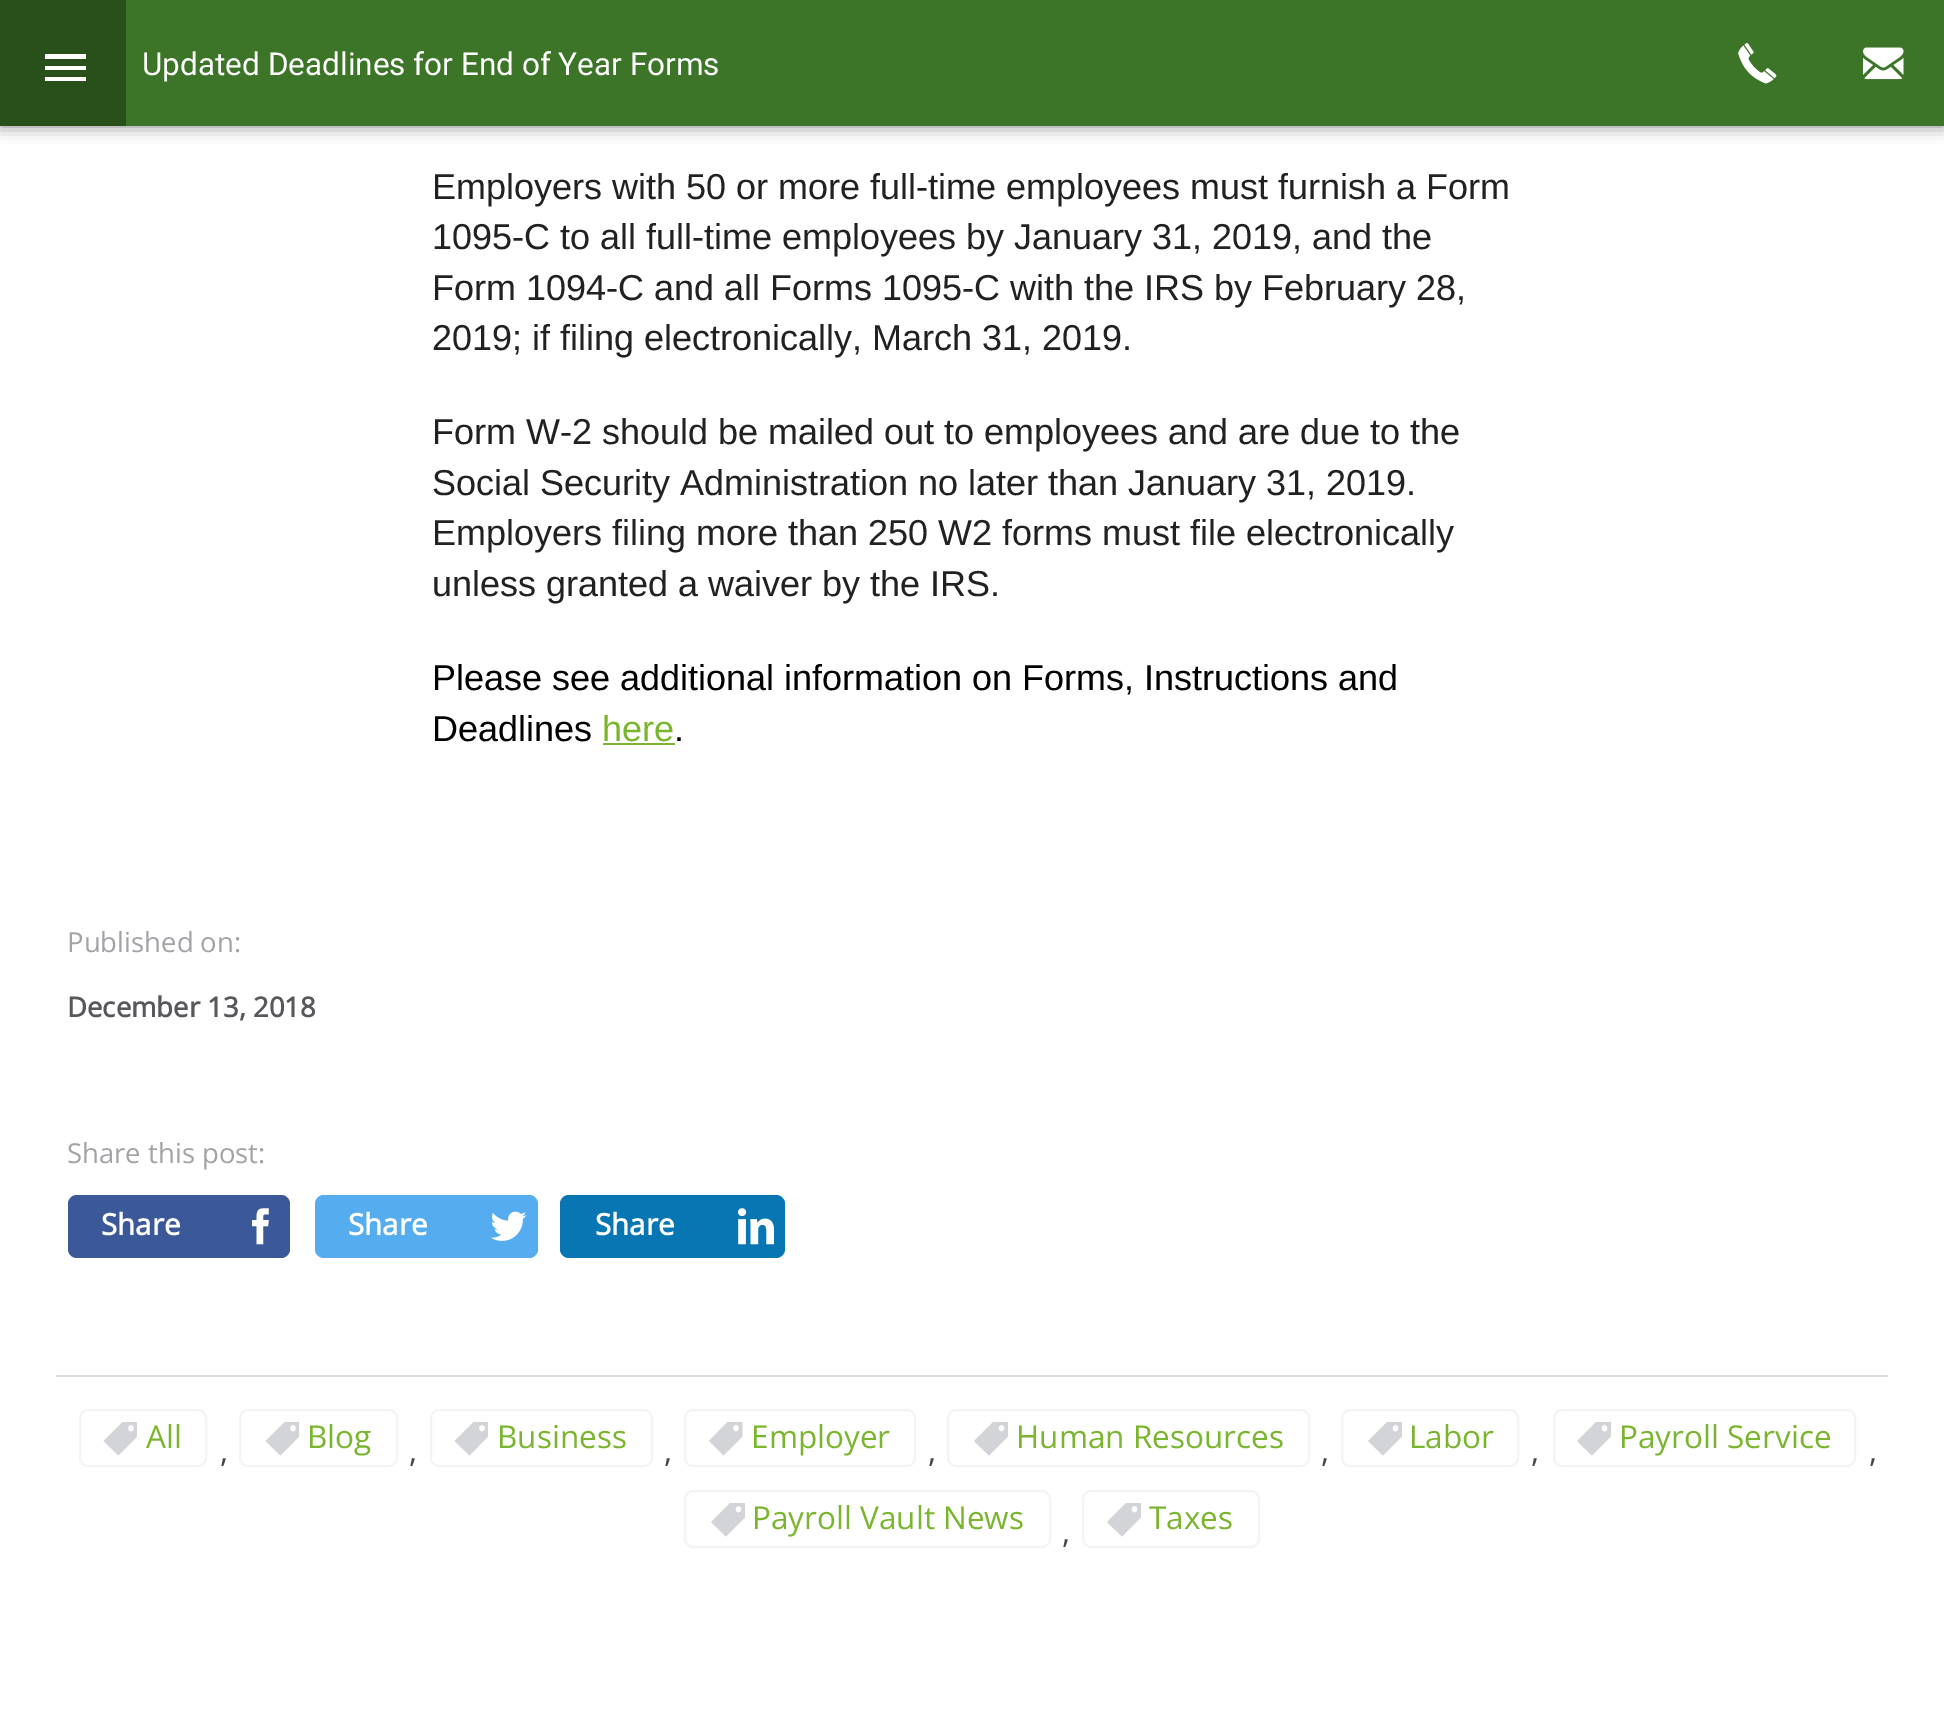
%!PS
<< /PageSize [1944 1732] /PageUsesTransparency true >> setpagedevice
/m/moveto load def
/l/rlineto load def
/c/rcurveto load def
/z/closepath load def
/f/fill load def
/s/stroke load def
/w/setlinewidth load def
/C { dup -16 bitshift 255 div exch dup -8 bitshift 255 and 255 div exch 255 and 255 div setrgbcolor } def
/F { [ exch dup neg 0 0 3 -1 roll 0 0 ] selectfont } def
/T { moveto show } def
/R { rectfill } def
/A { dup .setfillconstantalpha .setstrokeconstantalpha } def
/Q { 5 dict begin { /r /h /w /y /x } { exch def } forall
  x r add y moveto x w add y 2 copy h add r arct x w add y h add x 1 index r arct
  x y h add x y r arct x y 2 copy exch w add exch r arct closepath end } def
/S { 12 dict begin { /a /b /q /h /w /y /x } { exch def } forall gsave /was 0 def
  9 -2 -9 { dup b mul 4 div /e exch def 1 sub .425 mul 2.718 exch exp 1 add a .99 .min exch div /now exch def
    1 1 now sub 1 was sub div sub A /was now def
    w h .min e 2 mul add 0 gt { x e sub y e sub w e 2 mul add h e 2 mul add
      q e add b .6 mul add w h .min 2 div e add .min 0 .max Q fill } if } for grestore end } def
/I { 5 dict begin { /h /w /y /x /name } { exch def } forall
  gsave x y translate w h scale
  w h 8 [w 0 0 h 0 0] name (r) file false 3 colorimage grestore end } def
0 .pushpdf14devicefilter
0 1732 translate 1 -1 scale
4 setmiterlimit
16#FFFFFF C
0 0 1944 1732 R
16#000000 C
0 0 1944 126 0 8 .5 S
16#3D7528 C
126 0 1818 126 R
16#294F1B C
0 0 126 126 R
16#FFFFFF C
45 54 m 41 0 l 0 5 l -41 0 l z 45 70 m 0 -4 l 41 0 l 0 4 l z 45 81 m 0 -4 l 41 0 l 0 4 l z f
/Roboto-Regular 31.5 F
(Updated Deadlines for End of Year Forms) 142 75 T
(1.rgb) 1738 43 39 41 I
(2.rgb) 1863 47 41 33 I
/LiberationSans-Regular 36 F
16#212121 C
(Employers with 50 or more full-time employees must furnish a Form) 432 199 T
(1095-C to all full-time employees by January 31, 2019, and the) 432 249 T
(Form 1094-C and all Forms 1095-C with the IRS by February 28,) 432 300 T
(2019; if filing electronically, March 31, 2019.) 432 350 T
(Form W-2 should be mailed out to employees and are due to the) 432 444 T
(Social Security Administration no later than January 31, 2019.) 432 495 T
(Employers filing more than 250 W2 forms must file electronically) 432 545 T
(unless granted a waiver by the IRS.) 432 596 T
16#000000 C
(Please see additional information on Forms, Instructions and) 432 690 T
(Deadlines) 432 741 T
16#7AB52E C
(here) 602 741 T
16#000000 C
(.) 674 741 T
16#7AB52E C
603 743 72 2 R
/OpenSans-Regular 27.5 F
16#A1A3A6 C
(Published on:) 67 952 T
/OpenSans-Bold 27.5 F
16#57575C C
(December 13, 2018) 67 1017 T
/OpenSans-Regular 27.5 F
16#A1A3A6 C
(Share this post:) 67 1163 T
16#3B5998 C
68 1195 222 63 9 Q f
/OpenSans-Bold 29.5 F
16#FFFFFF C
(Share) 101 1235 T
(3.rgb) 252 1208 17 37 I
16#55ACEE C
315 1195 223 63 9 Q f
16#FFFFFF C
(Share) 348 1235 T
(4.rgb) 490 1211 37 30 I
16#0976B4 C
560 1195 225 63 9 Q f
16#FFFFFF C
(Share) 595 1235 T
(5.rgb) 738 1208 36 37 I
16#DDDDDD C
56 1375 1832 2 R
16#F4F4F4 C
2 w
80 1410 126 56 8 Q s
16#D2D4D7 C
122.5 1422 m -19 19 l 15 14.5 l 18.5 -19 l 0 -14.5 l z 131 1431.5 m -4 0 -4 -6.5 0 -6.5 c 4 0 4 6.5 0 6.5 c z f
/OpenSans-Regular 31.5 F
16#7AB52E C
(All) 146 1448 T
16#F4F4F4 C
240 1410 157 56 8 Q s
16#D2D4D7 C
284.5 1422 m -19 19 l 15 14.5 l 18.5 -19 l 0 -14.5 l z 293 1431.5 m -4 0 -4 -6.5 0 -6.5 c 4 0 4 6.5 0 6.5 c z f
16#7AB52E C
(Blog) 307 1448 T
16#F4F4F4 C
431 1410 221 56 8 Q s
16#D2D4D7 C
473.5 1422 m -19 19 l 15 14.5 l 18.5 -19 l 0 -14.5 l z 482 1431.5 m -4 0 -4 -6.5 0 -6.5 c 4 0 4 6.5 0 6.5 c z f
16#7AB52E C
(Business) 497 1448 T
16#F4F4F4 C
685 1410 230 56 8 Q s
16#D2D4D7 C
727.5 1422 m -18.5 19 l 14.5 14.5 l 19 -19 l 0 -14.5 l z 736 1431.5 m -4 0 -4 -6.5 0 -6.5 c 4 0 4 6.5 0 6.5 c z f
16#7AB52E C
(Employer) 751 1448 T
16#F4F4F4 C
948 1410 361 56 8 Q s
16#D2D4D7 C
993 1422 m -19 19 l 15 14.5 l 19 -19 l 0 -14.5 l z 1001.5 1431.5 m -4 0 -4 -6.5 0 -6.5 c 4 0 4 6.5 0 6.5 c z f
16#7AB52E C
(Human Resources) 1016 1448 T
16#F4F4F4 C
1342 1410 176 56 8 Q s
16#D2D4D7 C
1387 1422 m -19 19 l 15 14.5 l 19 -19 l 0 -14.5 l z 1395.5 1431.5 m -4 0 -4 -6.5 0 -6.5 c 4 0 4 6.5 0 6.5 c z f
16#7AB52E C
(Labor) 1409 1448 T
16#F4F4F4 C
1554 1410 301 56 8 Q s
16#D2D4D7 C
1596 1422 m -19 19 l 15 14.5 l 19 -19 l 0 -14.5 l z 1604.5 1431.5 m -4 0 -4 -6.5 0 -6.5 c 4 0 4 6.5 0 6.5 c z f
16#7AB52E C
(Payroll Service) 1619 1448 T
16#494546 C
(,) 220 1462 T
(,) 409 1462 T
(,) 664 1462 T
(,) 928 1462 T
(,) 1321 1462 T
(,) 1531 1462 T
(,) 1869 1462 T
16#F4F4F4 C
685 1491 365 56 8 Q s
16#D2D4D7 C
730 1503 m -19 19 l 15 14.5 l 19 -19 l 0 -14.5 l z 738.5 1512.5 m -4 0 -4 -6.5 0 -6.5 c 4 0 4 6.5 0 6.5 c z f
16#7AB52E C
(Payroll Vault News) 752 1529 T
16#F4F4F4 C
1083 1491 176 56 8 Q s
16#D2D4D7 C
1126 1503 m -19 19 l 15 14.5 l 19 -19 l 0 -14.5 l z 1134.5 1512.5 m -4 0 -4 -6.5 0 -6.5 c 4 0 4 6.5 0 6.5 c z f
16#7AB52E C
(Taxes) 1149 1529 T
16#494546 C
(,) 1062 1543 T
.poppdf14devicefilter showpage
